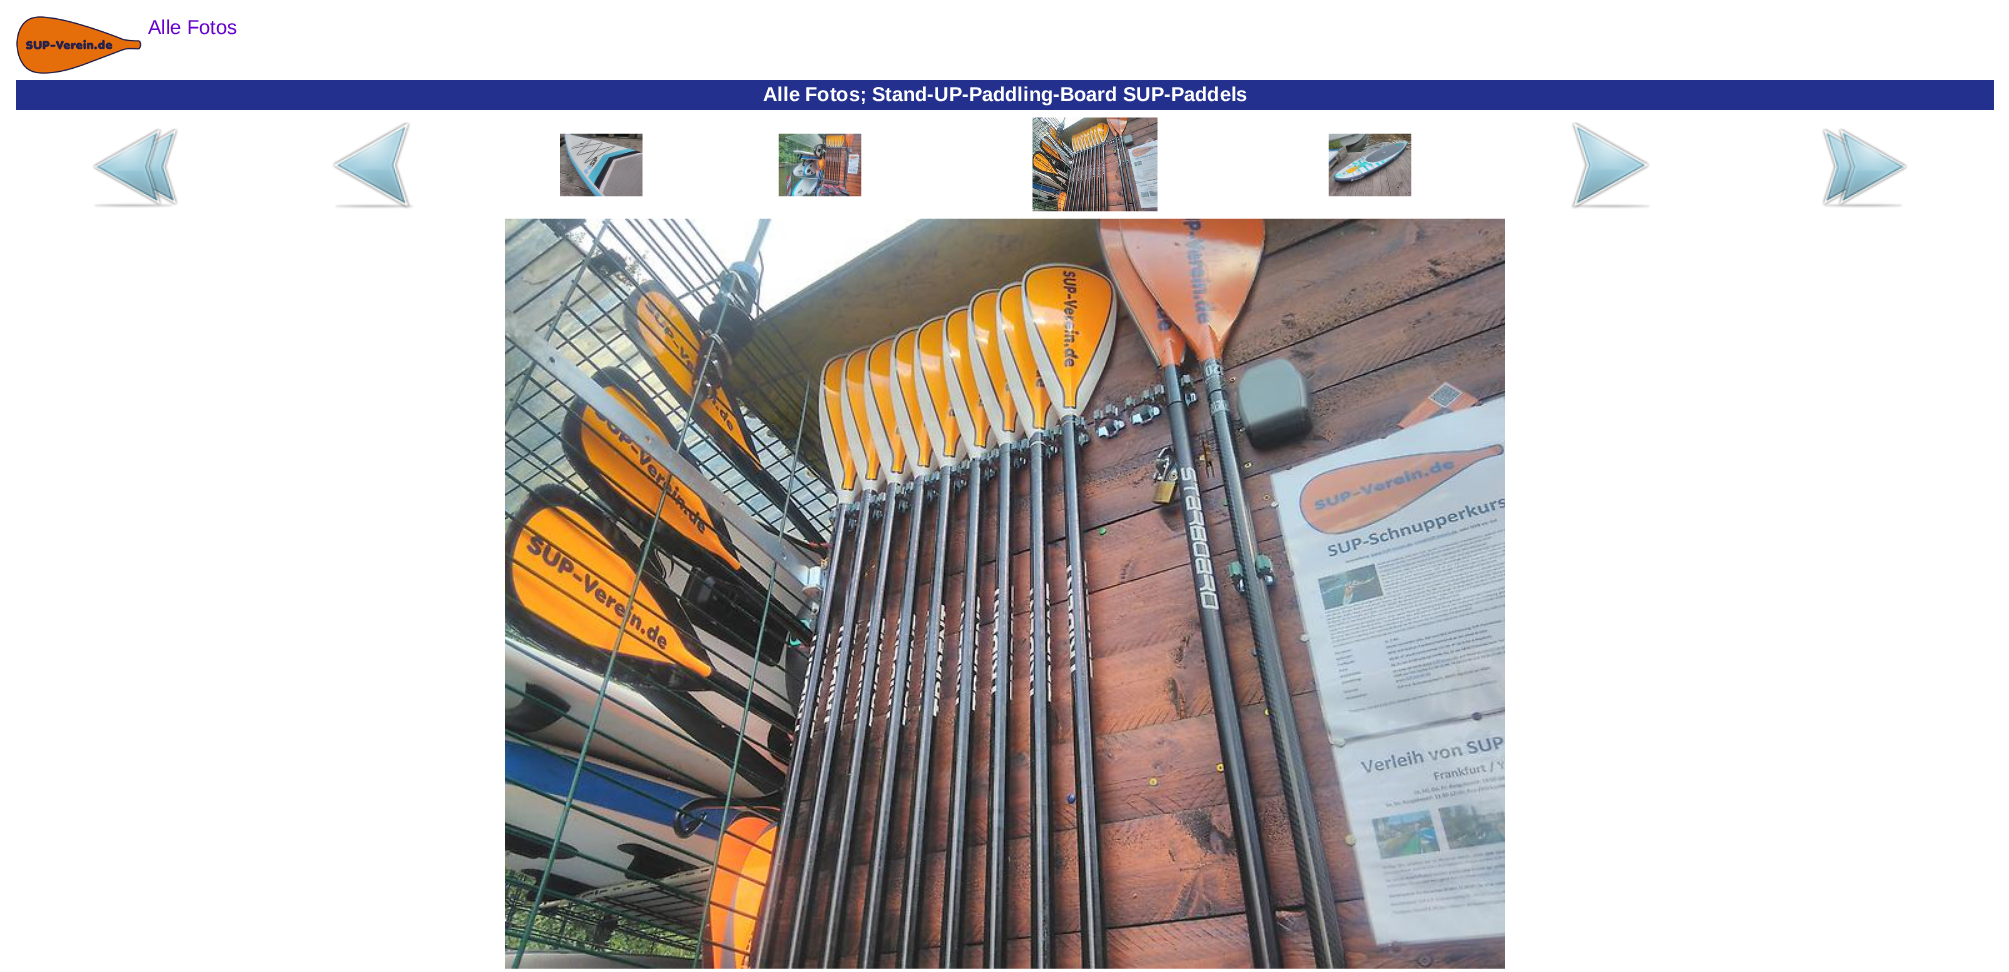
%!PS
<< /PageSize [2009 972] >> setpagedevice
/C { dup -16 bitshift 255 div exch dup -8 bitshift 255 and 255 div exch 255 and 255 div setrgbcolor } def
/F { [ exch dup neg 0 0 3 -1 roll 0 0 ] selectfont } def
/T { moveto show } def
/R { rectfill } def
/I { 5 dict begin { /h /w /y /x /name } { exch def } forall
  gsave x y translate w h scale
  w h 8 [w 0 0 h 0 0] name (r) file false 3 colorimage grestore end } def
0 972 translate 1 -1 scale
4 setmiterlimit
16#FFFFFF C
0 0 2009 972 R
(1.rgb) 16 16 126 58 I
/LiberationSans-Regular 20 F
16#6600CC C
(Alle Fotos) 148 34 T
16#23308E C
16 80 1978 30 R
/LiberationSans-Bold 20 F
16#FFFFFF C
(Alle Fotos; Stand-UP-Paddling-Board SUP-Paddels) 763 101 T
(2.rgb) 92 128 86 80 I
(3.rgb) 332 122 82 87 I
(4.rgb) 560 133 83 64 I
(5.rgb) 778 133 84 64 I
(6.rgb) 1032 117 126 95 I
(7.rgb) 1328 133 84 64 I
(8.rgb) 1571 122 79 87 I
(9.rgb) 1822 128 86 80 I
(10.rgb) 505 218 1000 751 I
showpage
